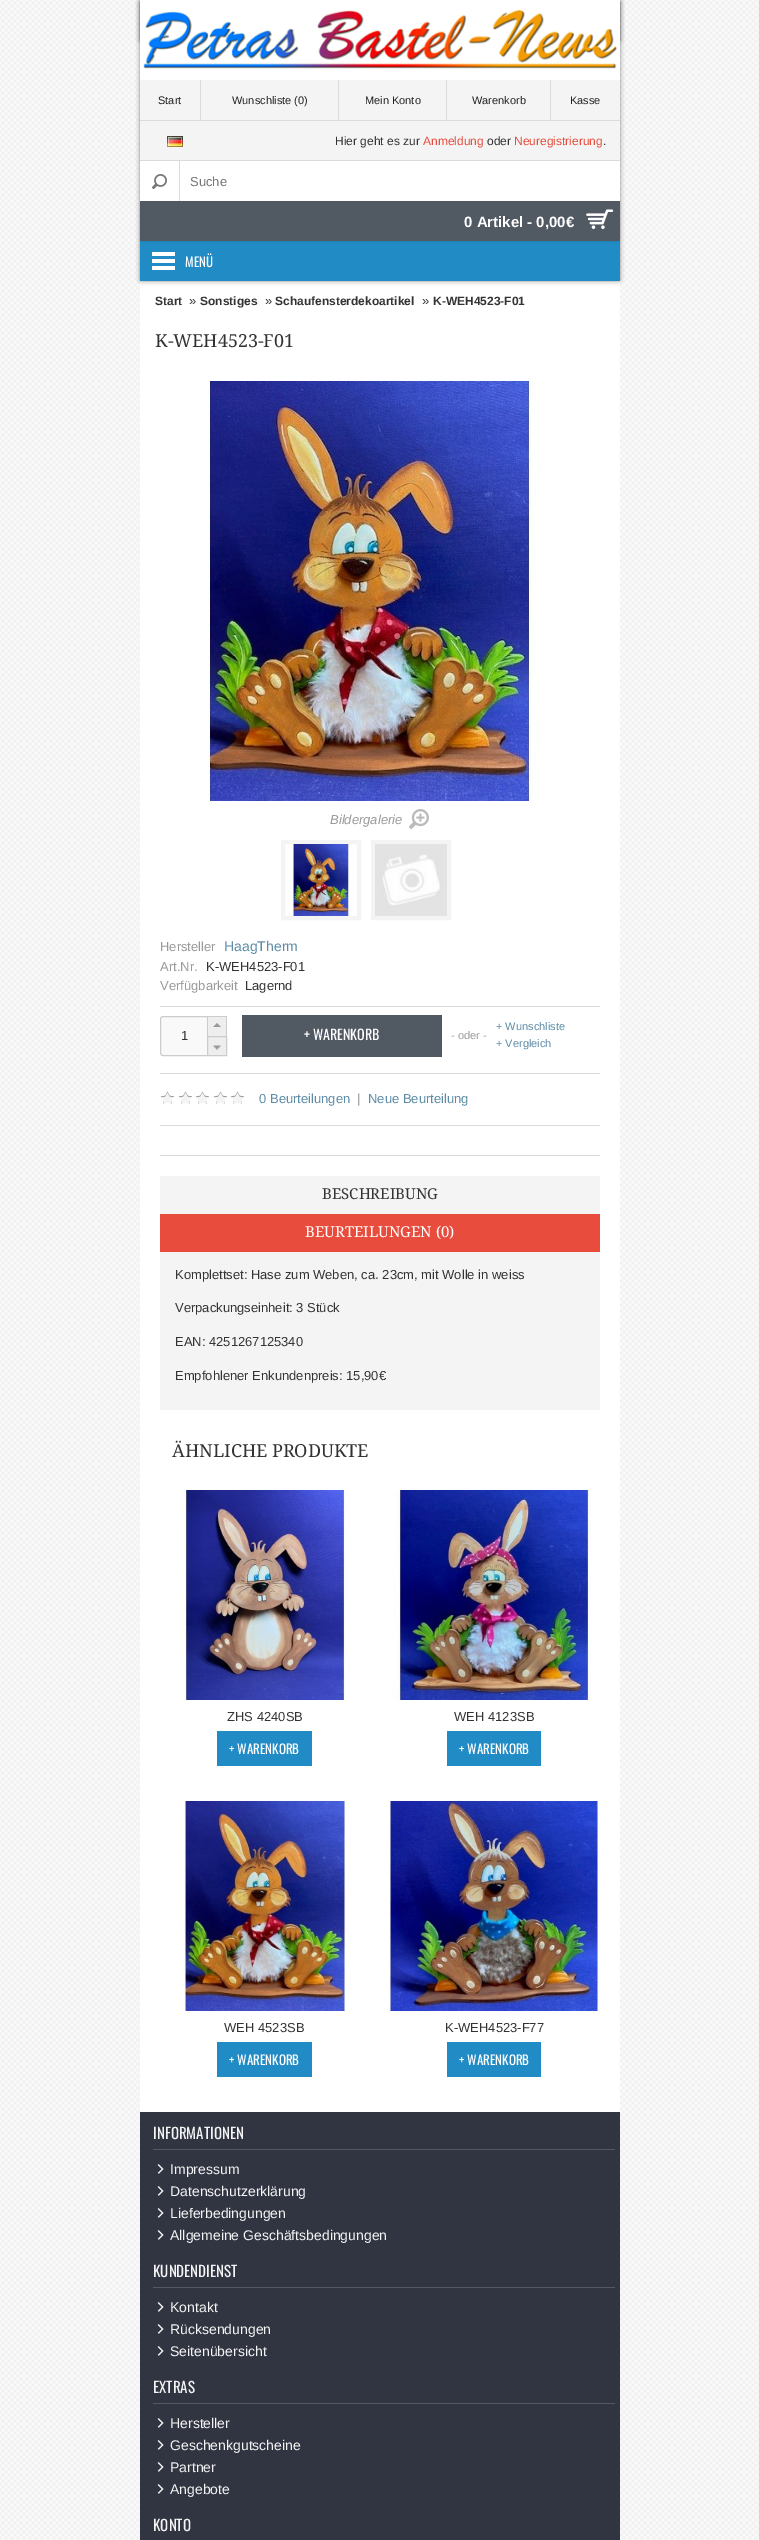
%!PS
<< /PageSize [759 2540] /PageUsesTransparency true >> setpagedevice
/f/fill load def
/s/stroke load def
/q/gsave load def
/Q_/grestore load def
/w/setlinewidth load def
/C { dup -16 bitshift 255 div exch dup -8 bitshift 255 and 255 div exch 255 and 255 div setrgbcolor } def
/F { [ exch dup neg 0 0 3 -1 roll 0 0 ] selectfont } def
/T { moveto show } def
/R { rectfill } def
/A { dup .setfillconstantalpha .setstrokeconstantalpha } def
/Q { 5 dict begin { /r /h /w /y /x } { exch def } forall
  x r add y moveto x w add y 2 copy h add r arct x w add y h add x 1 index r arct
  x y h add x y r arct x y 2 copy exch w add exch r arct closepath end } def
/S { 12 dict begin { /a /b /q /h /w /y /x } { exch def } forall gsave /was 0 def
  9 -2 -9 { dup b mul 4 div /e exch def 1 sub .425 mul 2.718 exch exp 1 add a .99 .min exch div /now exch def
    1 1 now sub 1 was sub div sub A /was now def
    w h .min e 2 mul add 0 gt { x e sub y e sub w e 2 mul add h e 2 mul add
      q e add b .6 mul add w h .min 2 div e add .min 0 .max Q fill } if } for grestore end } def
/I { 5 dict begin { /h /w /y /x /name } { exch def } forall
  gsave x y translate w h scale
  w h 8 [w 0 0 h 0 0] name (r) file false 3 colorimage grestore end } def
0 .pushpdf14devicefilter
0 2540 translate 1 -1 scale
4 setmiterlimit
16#FFFFFF C
0 0 759 2540 R
(1.rgb) 0 0 759 2540 I
140 281 480 1831 R
16#000000 C
141 2 478 278 0 2.5 .7 S
16#F4F4F4 C
140 80 480 80 R
16#000000 C
141 2 478 38 0 2.5 .7 S
16#FFFFFF C
140 0 480 80 R
(2.rgb) 143 9 474 60 I
16#DBDBDB C
140 120 480 1 R
/LiberationSans-Regular 11 F
16#222222 C
(Start) 158 104 T
16#DBDBDB C
200 80 1 40 R
16#222222 C
(Wunschliste \(0\)) 232 104 T
16#DBDBDB C
338 80 1 40 R
16#222222 C
(Mein Konto) 365 104 T
16#DBDBDB C
446 80 1 40 R
16#222222 C
(Warenkorb) 472 104 T
16#DBDBDB C
550 80 1 40 R
16#222222 C
(Kasse) 570 104 T
16#DBDBDB C
140 160 480 1 R
(3.rgb) 167 136 16 11 I
/LiberationSans-Regular 12 F
16#333333 C
(Hier geht es zur) 335 145 T
16#E74C3C C
(Anmeldung) 423 145 T
16#333333 C
(oder) 487 145 T
16#E74C3C C
(Neuregistrierung) 514 145 T
16#333333 C
(.) 603 145 T
16#FFFFFF C
140 161 480 40 R
(4.rgb) 152 174 15 15 I
16#DBDBDB C
179 161 1 40 R
/LiberationSans-Regular 13 F
16#757575 C
(Suche) 190 186 T
16#208BC5 C
140 241 480 40 R
16#000000 C
142 204 476 36 0 1.5 .3 S
16#515963 C
140 201 480 40 R
/LiberationSans-Bold 15 F
16#FFFFFF C
(0 Artikel - 0,00€) 464 227 T
(5.rgb) 586 209 28 20 I
152 252 23 4 R
152 259 23 4 R
152 266 23 4 R
/Oswald-Regular 13 F
(MENÜ) 185 267 T
/LiberationSans-Bold 12 F
16#333333 C
(Start) 155 305 T
/LiberationSans-Regular 13 F
(») 189 305 T
/LiberationSans-Bold 12 F
(Sonstiges) 200 305 T
/LiberationSans-Regular 13 F
(») 265 305 T
/LiberationSans-Bold 12 F
(Schaufensterdekoartikel) 275 305 T
/LiberationSans-Regular 13 F
(») 422 305 T
/LiberationSans-Bold 12 F
(K-WEH4523-F01) 433 305 T
/DroidSerif-Regular 18 F
(K-WEH4523-F01) 155 347 T
(6.rgb) 208 381 334 420 I
/LiberationSans-Italic 13 F
16#999999 C
(Bildergalerie) 330 824 T
(7.rgb) 409 809 20 20 I
16#F4F4F4 C
4 w
283 842 76 76 rectstroke
373 842 76 76 rectstroke
(8.rgb) 293 844 56 72 I
(9.rgb) 375 844 72 72 I
16#DBDBDB C
160 1006 440 1 R
/LiberationSans-Regular 13 F
16#999999 C
(Hersteller) 160 951 T
/LiberationSans-Regular 14 F
16#5C8BA6 C
(HaagTherm) 224 951 T
/LiberationSans-Regular 13 F
16#999999 C
(Art.Nr.) 160 971 T
16#333333 C
(K-WEH4523-F01) 206 971 T
16#999999 C
(Verfügbarkeit) 160 990 T
16#333333 C
(Lagernd) 245 990 T
16#DBDBDB C
160 1073 440 1 R
16#F9F9F9 C
160.5 1016.5 49 39 2.5 Q q f Q_
16#CCCCCC C
1 w
s
16#333333 C
(1) 181 1040 T
16#EEEEEE C
208 1017 18 19 R
(10.rgb) 213 1023 8 4 I
16#CCCCCC C
207 1016 20 1 R
226 1016 1 20 R
207 1016 1 20 R
16#EEEEEE C
208 1037 18 18 R
(11.rgb) 213 1045 8 5 I
16#CCCCCC C
207.5 1036.5 19 19 rectstroke
16#515963 C
242 1015 200 42 R
/Oswald-Regular 14 F
16#FFFFFF C
(+ WARENKORB) 304 1040 T
/LiberationSans-Regular 11 F
16#999999 C
(- oder -) 451 1039 T
16#5C8BA6 C
(+ Wunschliste) 496 1030 T
(+ Vergleich) 496 1047 T
(12.rgb) 160 1091 85 14 I
/LiberationSans-Regular 13 F
(0 Beurteilungen) 259 1103 T
16#888888 C
(|) 357 1103 T
16#5C8BA6 C
(Neue Beurteilung) 368 1103 T
16#DBDBDB C
160 1125 440 1 R
160 1155 440 1 R
16#F4F4F4 C
160 1176 440 38 R
/DroidSerif-Regular 15 F
16#333333 C
(BESCHREIBUNG) 322 1199 T
16#E74C3C C
160 1214 440 38 R
16#FFFFFF C
(BEURTEILUNGEN \(0\)) 305 1237 T
16#F4F4F4 C
160 1252 440 158 R
/LiberationSans-Regular 13 F
16#333333 C
(Komplettset: Hase zum Weben, ca. 23cm, mit Wolle in weiss) 175 1279 T
(Verpackungseinheit: 3 Stück) 175 1312 T
(EAN: 4251267125340) 175 1346 T
(Empfohlener Enkundenpreis: 15,90€) 175 1380 T
/DroidSerif-Regular 18 F
(ÄHNLICHE PRODUKTE) 172 1457 T
(13.rgb) 185 1490 166 210 I
/LiberationSans-Regular 13 F
(ZHS 4240SB) 227 1721 T
16#208BC5 C
217 1731 95 35 R
/Oswald-Regular 13 F
16#FFFFFF C
(+ WARENKORB) 229 1754 T
(14.rgb) 391 1490 202 210 I
/LiberationSans-Regular 13 F
16#333333 C
(WEH 4123SB) 454 1721 T
16#208BC5 C
447 1731 94 35 R
/Oswald-Regular 13 F
16#FFFFFF C
(+ WARENKORB) 459 1754 T
(15.rgb) 184 1801 168 210 I
/LiberationSans-Regular 13 F
16#333333 C
(WEH 4523SB) 224 2032 T
16#208BC5 C
217 2042 95 35 R
/Oswald-Regular 13 F
16#FFFFFF C
(+ WARENKORB) 229 2065 T
(16.rgb) 389 1801 210 210 I
/LiberationSans-Regular 13 F
16#333333 C
(K-WEH4523-F77) 445 2032 T
16#208BC5 C
447 2042 94 35 R
/Oswald-Regular 13 F
16#FFFFFF C
(+ WARENKORB) 459 2065 T
16#313542 C
140 2112 480 428 R
16#515963 C
153 2149 462 1 R
/Oswald-Regular 15 F
16#F4F4F4 C
(INFORMATIONEN) 153 2139 T
/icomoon-Regular 11 F
(1) 155 2174 T
/LiberationSans-Regular 14 F
(Impressum) 170 2174 T
/icomoon-Regular 11 F
(1) 155 2196 T
/LiberationSans-Regular 14 F
(Datenschutzerklärung) 170 2196 T
/icomoon-Regular 11 F
(1) 155 2218 T
/LiberationSans-Regular 14 F
(Lieferbedingungen) 170 2218 T
/icomoon-Regular 11 F
(1) 155 2240 T
/LiberationSans-Regular 14 F
(Allgemeine Geschäftsbedingungen) 170 2240 T
16#515963 C
153 2287 462 1 R
/Oswald-Regular 15 F
16#F4F4F4 C
(KUNDENDIENST) 153 2277 T
/icomoon-Regular 11 F
(1) 155 2312 T
/LiberationSans-Regular 14 F
(Kontakt) 170 2312 T
/icomoon-Regular 11 F
(1) 155 2334 T
/LiberationSans-Regular 14 F
(Rücksendungen) 170 2334 T
/icomoon-Regular 11 F
(1) 155 2356 T
/LiberationSans-Regular 14 F
(Seitenübersicht) 170 2356 T
16#515963 C
153 2403 462 1 R
/Oswald-Regular 15 F
16#F4F4F4 C
(EXTRAS) 153 2393 T
/icomoon-Regular 11 F
(1) 155 2428 T
/LiberationSans-Regular 14 F
(Hersteller) 170 2428 T
/icomoon-Regular 11 F
(1) 155 2450 T
/LiberationSans-Regular 14 F
(Geschenkgutscheine) 170 2450 T
/icomoon-Regular 11 F
(1) 155 2472 T
/LiberationSans-Regular 14 F
(Partner) 170 2472 T
/icomoon-Regular 11 F
(1) 155 2494 T
/LiberationSans-Regular 14 F
(Angebote) 170 2494 T
/Oswald-Regular 15 F
(KONTO) 153 2531 T
.poppdf14devicefilter showpage
